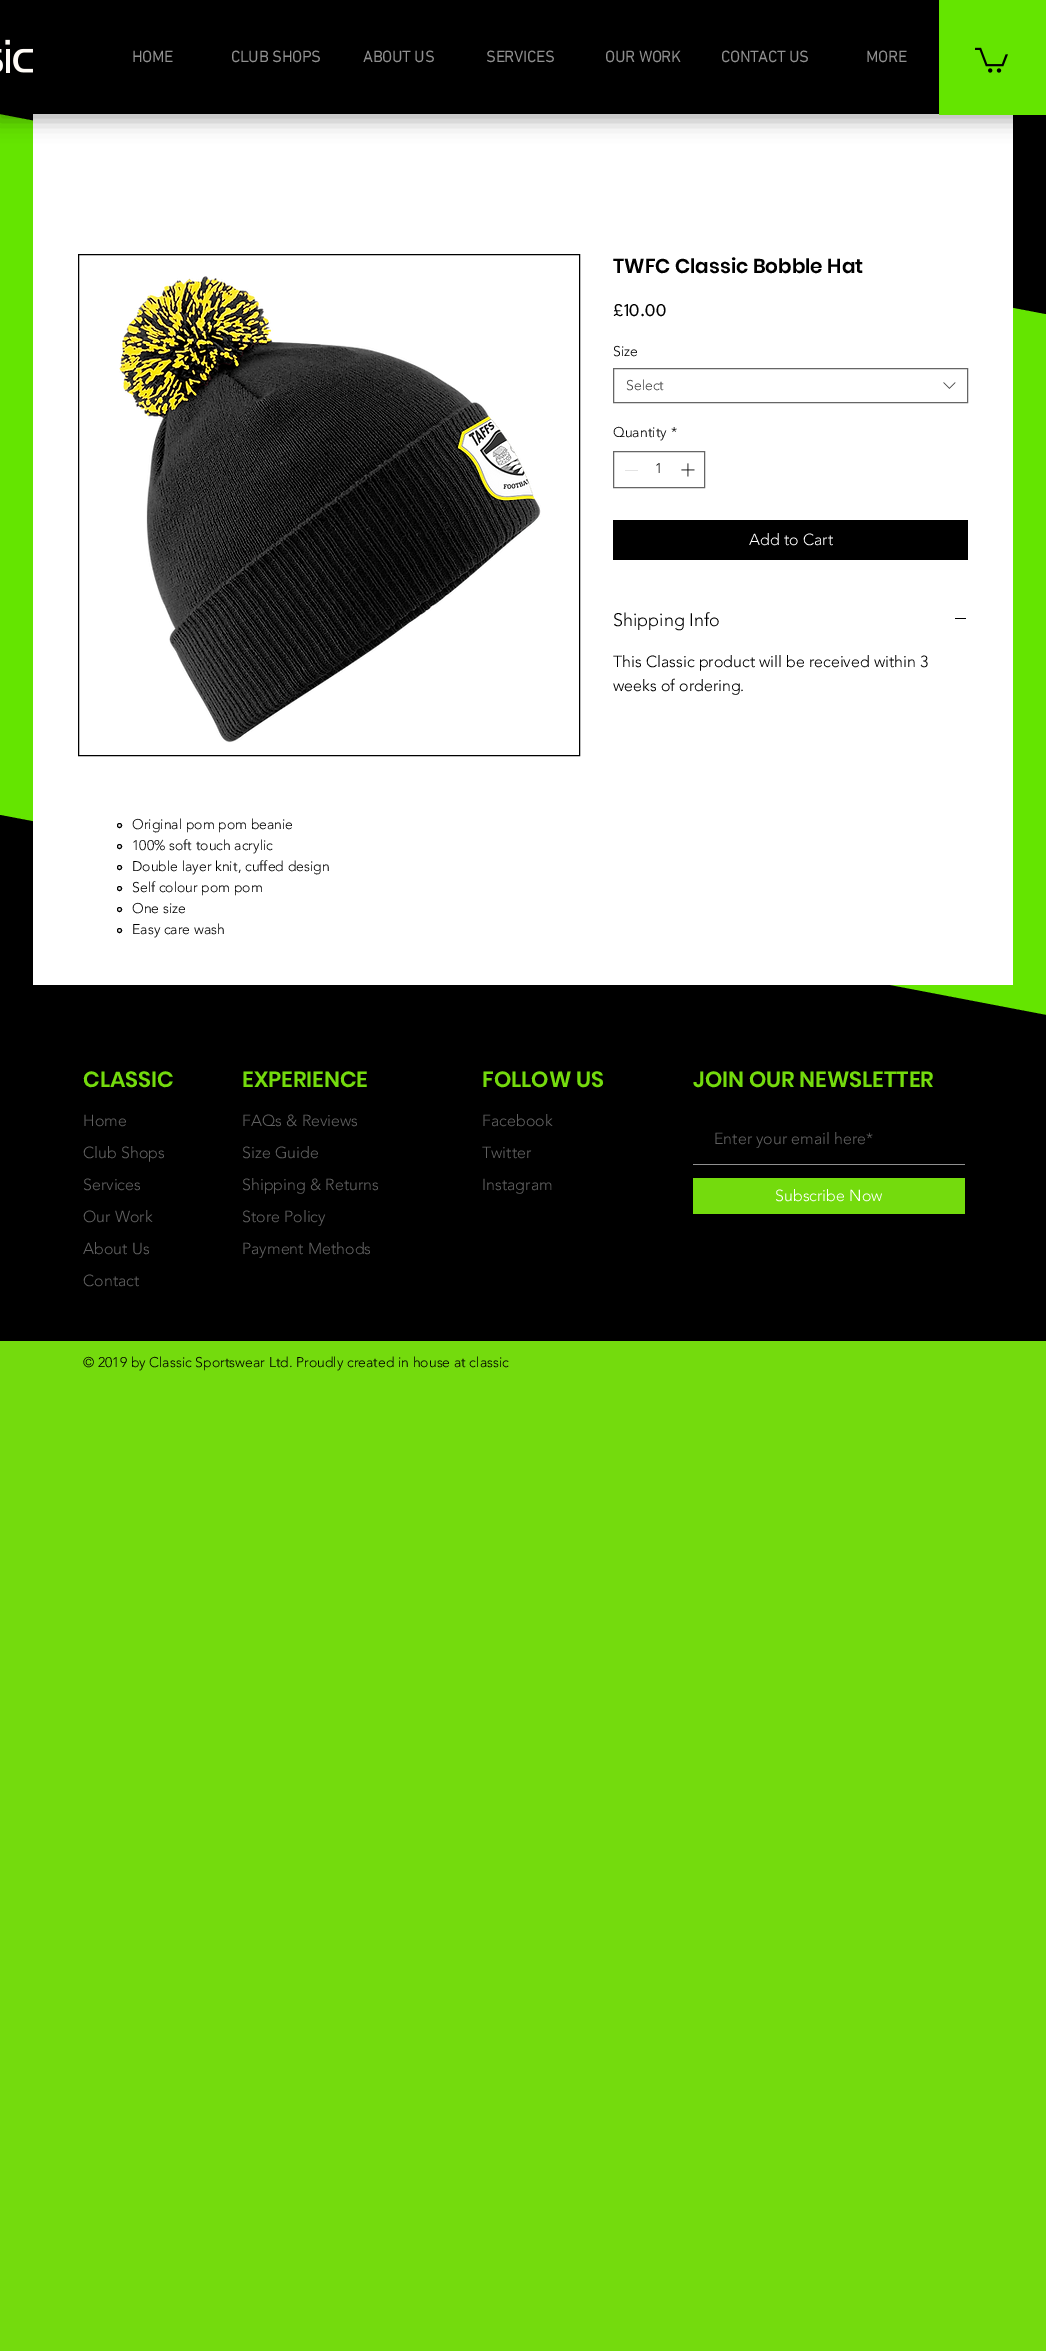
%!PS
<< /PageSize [1046 2351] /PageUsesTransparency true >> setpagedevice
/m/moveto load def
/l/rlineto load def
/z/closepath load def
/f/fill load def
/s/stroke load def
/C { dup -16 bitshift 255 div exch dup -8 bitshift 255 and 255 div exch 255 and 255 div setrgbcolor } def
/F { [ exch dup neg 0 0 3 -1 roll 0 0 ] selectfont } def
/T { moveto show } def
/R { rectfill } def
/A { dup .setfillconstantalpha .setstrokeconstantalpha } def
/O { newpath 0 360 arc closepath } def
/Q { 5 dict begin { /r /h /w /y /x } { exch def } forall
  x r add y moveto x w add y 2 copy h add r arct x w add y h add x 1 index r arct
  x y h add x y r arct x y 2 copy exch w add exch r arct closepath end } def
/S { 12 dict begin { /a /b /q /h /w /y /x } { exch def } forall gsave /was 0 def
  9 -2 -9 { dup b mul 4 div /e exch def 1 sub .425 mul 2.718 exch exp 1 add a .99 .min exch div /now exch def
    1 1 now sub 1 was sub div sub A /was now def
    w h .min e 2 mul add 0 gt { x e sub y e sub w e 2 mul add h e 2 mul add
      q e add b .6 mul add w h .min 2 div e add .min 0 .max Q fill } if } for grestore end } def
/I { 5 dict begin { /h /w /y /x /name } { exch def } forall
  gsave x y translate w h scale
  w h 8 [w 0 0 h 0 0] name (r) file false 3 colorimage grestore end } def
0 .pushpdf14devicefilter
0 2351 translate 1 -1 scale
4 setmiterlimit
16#74DB0D C
0 0 1046 2351 R
16#64E500 C
0 114 1046 901 R
16#000000 C
0 114 m 1046 200 l 0 -200 l z f
1046 1015 m -1046 -200 l 0 200 l z f
16#FFFFFF C
33 114 980 871 R
16#000000 C
-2 3 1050 118 0 10 .3 S
0 0 939 114 R
(1.rgb) 0 39 33 34 I
/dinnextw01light-Bold 16 F
16#909090 C
(HOME) 132 62 T
(CLUB SHOPS) 231 62 T
(ABOUT US) 363 62 T
(SERVICES) 486 62 T
(OUR WORK) 605 62 T
(CONTACT US) 721 62 T
(MORE) 866 62 T
16#64E500 C
939 0 107 115 R
(2.rgb) 975 47 33 26 I
/Poppins-SemiBold 20 F
16#000000 C
(TWFC Classic Bobble Hat) 613 273 T
/LeagueSpartan-Regular 18 F
(£10.00) 613 316 T
/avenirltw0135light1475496-Light 14 F
(Size) 613 356 T
16#666666 C
613.5 368.5 354 34 rectstroke
16#444444 C
(Select) 626 390 T
(3.rgb) 943 382 13 7 I
16#000000 C
(Quantity) 613 437 T
(*) 671 437 T
16#666666 C
613.5 451.5 91 36 rectstroke
16#E3E3E3 C
625 470 13 1 R
16#000000 C
(1) 655 473 T
(4.rgb) 681 463 14 14 I
613 520 355 40 R
/avenirltw0135light1475496-Light 16 F
16#FFFFFF C
(Add to Cart) 749 545 T
/avenirltw0135light1475496-Light 18 F
16#000000 C
(Shipping Info) 613 626 T
955 618 11 1 R
/avenirltw0135light1475496-Light 16 F
(This Classic product will be received within 3) 613 667 T
(weeks of ordering.) 613 691 T
78.5 254.5 501 501 rectstroke
(5.rgb) 119 276 422 467 I
119.5 825.5 2 O s
/avenirltw0135light1475496-Light 14 F
(Original pom pom beanie) 132 829 T
119.5 846.5 2 O s
(100% soft touch acrylic) 132 850 T
119.5 867.5 2 O s
(Double layer knit, cuffed design) 132 871 T
119.5 888.5 2 O s
(Self colour pom pom) 132 892 T
119.5 909.5 2 O s
(One size) 132 913 T
119.5 930.5 2 O s
(Easy care wash) 132 934 T
0 1015 1046 326 R
/Poppins-SemiBold 22 F
16#74DB0D C
(CLASSIC) 83 1087 T
(EXPERIENCE) 242 1087 T
(FOLLOW US) 482 1087 T
(JOIN OUR NEWSLETTER) 693 1087 T
/avenirltw0135light1475496-Light 16 F
16#606060 C
(Home) 83 1126 T
(Club Shops) 83 1158 T
(Services) 83 1190 T
(Our Work) 83 1222 T
(About Us) 83 1254 T
(Contact) 83 1286 T
(FAQs & Reviews) 242 1126 T
(Size Guide) 242 1158 T
(Shipping & Returns) 242 1190 T
(Store Policy) 242 1222 T
(Payment Methods) 242 1254 T
(Facebook) 482 1126 T
(Twitter) 482 1158 T
(Instagram) 482 1190 T
16#909090 C
693 1164 272 1 R
16#606060 C
(Enter your email here*) 714 1144 T
16#74DB0D C
693 1178 272 36 R
16#FFFFFF C
(Subscribe Now) 775 1201 T
/avenirltw0135light1475496-Light 14 F
16#000000 C
(© 2019 by Classic Sportswear Ltd. Proudly created in house at classic) 83 1367 T
.poppdf14devicefilter showpage
